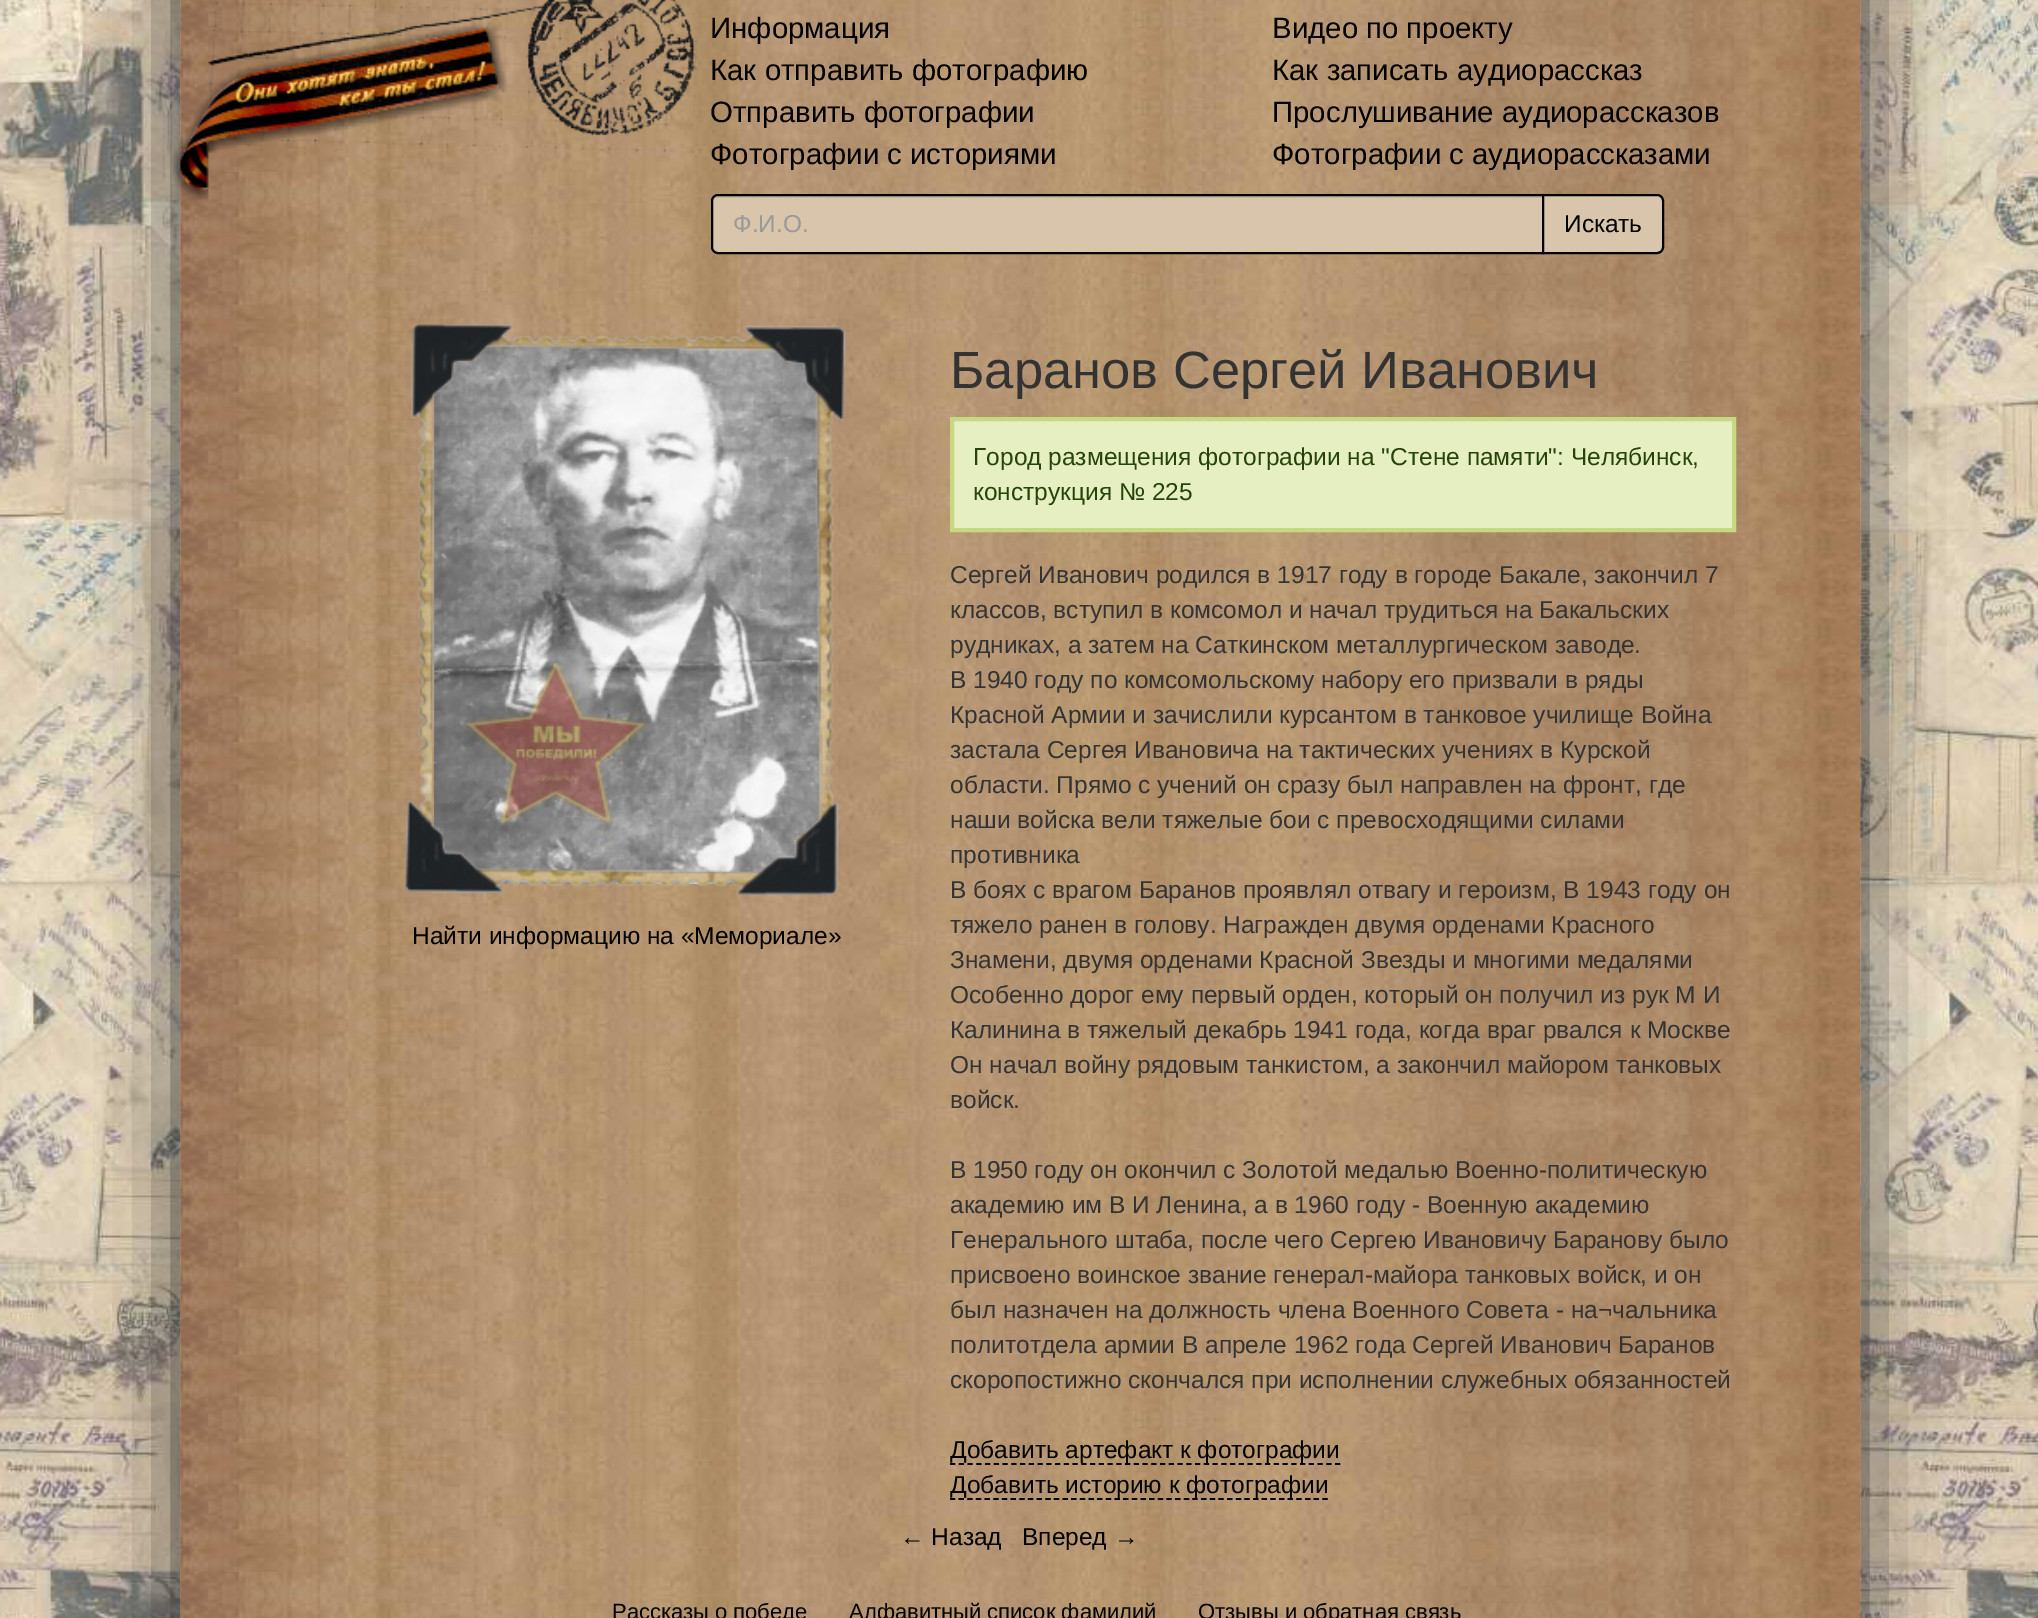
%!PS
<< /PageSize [2038 1618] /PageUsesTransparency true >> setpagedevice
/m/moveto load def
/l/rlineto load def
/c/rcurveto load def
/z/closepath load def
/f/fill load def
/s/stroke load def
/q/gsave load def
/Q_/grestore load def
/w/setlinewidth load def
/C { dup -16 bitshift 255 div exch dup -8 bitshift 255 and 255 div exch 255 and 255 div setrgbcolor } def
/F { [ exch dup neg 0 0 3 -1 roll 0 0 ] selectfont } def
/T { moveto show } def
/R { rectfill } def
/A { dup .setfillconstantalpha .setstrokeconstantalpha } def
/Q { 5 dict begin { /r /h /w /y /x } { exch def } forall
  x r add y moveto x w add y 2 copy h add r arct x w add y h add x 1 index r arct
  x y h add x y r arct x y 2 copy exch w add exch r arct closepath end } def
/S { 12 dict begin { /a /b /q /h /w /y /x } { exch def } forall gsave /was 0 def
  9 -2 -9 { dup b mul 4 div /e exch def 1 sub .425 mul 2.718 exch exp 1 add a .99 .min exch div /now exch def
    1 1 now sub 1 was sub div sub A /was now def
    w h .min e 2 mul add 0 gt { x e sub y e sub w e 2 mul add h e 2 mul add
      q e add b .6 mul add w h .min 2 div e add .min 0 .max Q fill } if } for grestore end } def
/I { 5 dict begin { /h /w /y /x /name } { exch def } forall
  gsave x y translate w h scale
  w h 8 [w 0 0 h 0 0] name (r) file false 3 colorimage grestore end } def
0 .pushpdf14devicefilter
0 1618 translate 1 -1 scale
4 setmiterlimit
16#FFFFFF C
0 0 2038 1618 R
(1.rgb) 0 0 2038 1618 I
16#333333 C
180 -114 1680 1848 0 38.5 1 S
(2.rgb) 180 0 1681 1618 I
(3.rgb) 206 0 491 154 I
(4.rgb) 172 22 336 178 I
/LiberationSans-Regular 29.4 F
16#000000 C
(Информация) 710 38 T
(Видео по проекту) 1272 38 T
(Как отправить фотографию) 710 80 T
(Как записать аудиорассказ) 1272 80 T
(Отправить фотографии) 710 122 T
(Прослушивание аудиорассказов) 1272 122 T
(Фотографии с историями) 710 164 T
(Фотографии с аудиорассказами) 1272 164 T
16#D9C5AC C
718 194 m 826 0 l 0 60 l -826 0 l -4 0 -7 -3 -7 -7 c 0 -46 l 0 -4 3 -7 7 -7 c z f
16#C9B69F C
718 198 m 824 0 l 0 -2 l -825 0 l -4 0 -5 4 -5 7 c 0 -3 3 -5 6 -5 c z f
16#000000 C
2 w
718 195 m 825 0 l 0 58 l -825 0 l -3.5 0 -6 -2.5 -6 -6 c 0 -46 l 0 -3.5 2.5 -6 6 -6 c z s
/LiberationSans-Regular 24.5 F
16#999999 C
(Ф.И.О.) 733 232 T
16#D9C5AC C
1543 195 m 114 0 l 3.5 0 6 2.5 6 6 c 0 46 l 0 3.5 -2.5 6 -6 6 c -114 0 l z q f Q_
16#000000 C
s
(Искать) 1564 232 T
(6.rgb) 434 341 385 543 I
(5.rgb) 404 322 442 573 I
(Найти информацию на «Мемориале») 412 944 T
/LiberationSans-Regular 52.5 F
16#333333 C
(Баранов Сергей Иванович) 950 388 T
16#E6EFC2 C
952 419 m 782 0 l 0 111 l -782 0 l z q f Q_
16#C6D880 C
4 w
s
/LiberationSans-Regular 24.5 F
16#264409 C
(Город размещения фотографии на "Стене памяти": Челябинск,) 973 465 T
(конструкция № 225) 973 500 T
16#333333 C
(Сергей Иванович родился в 1917 году в городе Бакале, закончил 7) 950 583 T
(классов, вступил в комсомол и начал трудиться на Бакальских) 950 618 T
(рудниках, а затем на Саткинском металлургическом заводе.) 950 653 T
(В 1940 году по комсомольскому набору его призвали в ряды) 950 688 T
(Красной Армии и зачислили курсантом в танковое училище Война) 950 723 T
(застала Сергея Ивановича на тактических учениях в Курской) 950 758 T
(области. Прямо с учений он сразу был направлен на фронт, где) 950 793 T
(наши войска вели тяжелые бои с превосходящими силами) 950 828 T
(противника) 950 863 T
(В боях с врагом Баранов проявлял отвагу и героизм, В 1943 году он) 950 898 T
(тяжело ранен в голову. Награжден двумя орденами Красного) 950 933 T
(Знамени, двумя орденами Красной Звезды и многими медалями) 950 968 T
(Особенно дорог ему первый орден, который он получил из рук М И) 950 1003 T
(Калинина в тяжелый декабрь 1941 года, когда враг рвался к Москве) 950 1038 T
(Он начал войну рядовым танкистом, а закончил майором танковых) 950 1073 T
(войск.) 950 1108 T
(В 1950 году он окончил с Золотой медалью Военно-политическую) 950 1178 T
(академию им В И Ленина, а в 1960 году - Военную академию) 950 1213 T
(Генерального штаба, после чего Сергею Ивановичу Баранову было) 950 1248 T
(присвоено воинское звание генерал-майора танковых войск, и он) 950 1283 T
(был назначен на должность члена Военного Совета - на¬чальника) 950 1318 T
(политотдела армии В апреле 1962 года Сергей Иванович Баранов) 950 1353 T
(скоропостижно скончался при исполнении служебных обязанностей) 950 1388 T
16#000000 C
1.8 w
[5.25 3.5] 0 setdash
950 1464 m 390.5 0 l s
(Добавить артефакт к фотографии) 950 1458 T
[5.25 3.41] 0 setdash
950 1499 m 378 0 l s
(Добавить историю к фотографии) 950 1493 T
(← Назад) 900 1545 T
(Вперед →) 1022 1545 T
/LiberationSans-Regular 22 F
(Рассказы о победе) 612 1619 T
(Алфавитный список фамилий) 849 1619 T
(Отзывы и обратная связь) 1198 1619 T
.poppdf14devicefilter showpage
